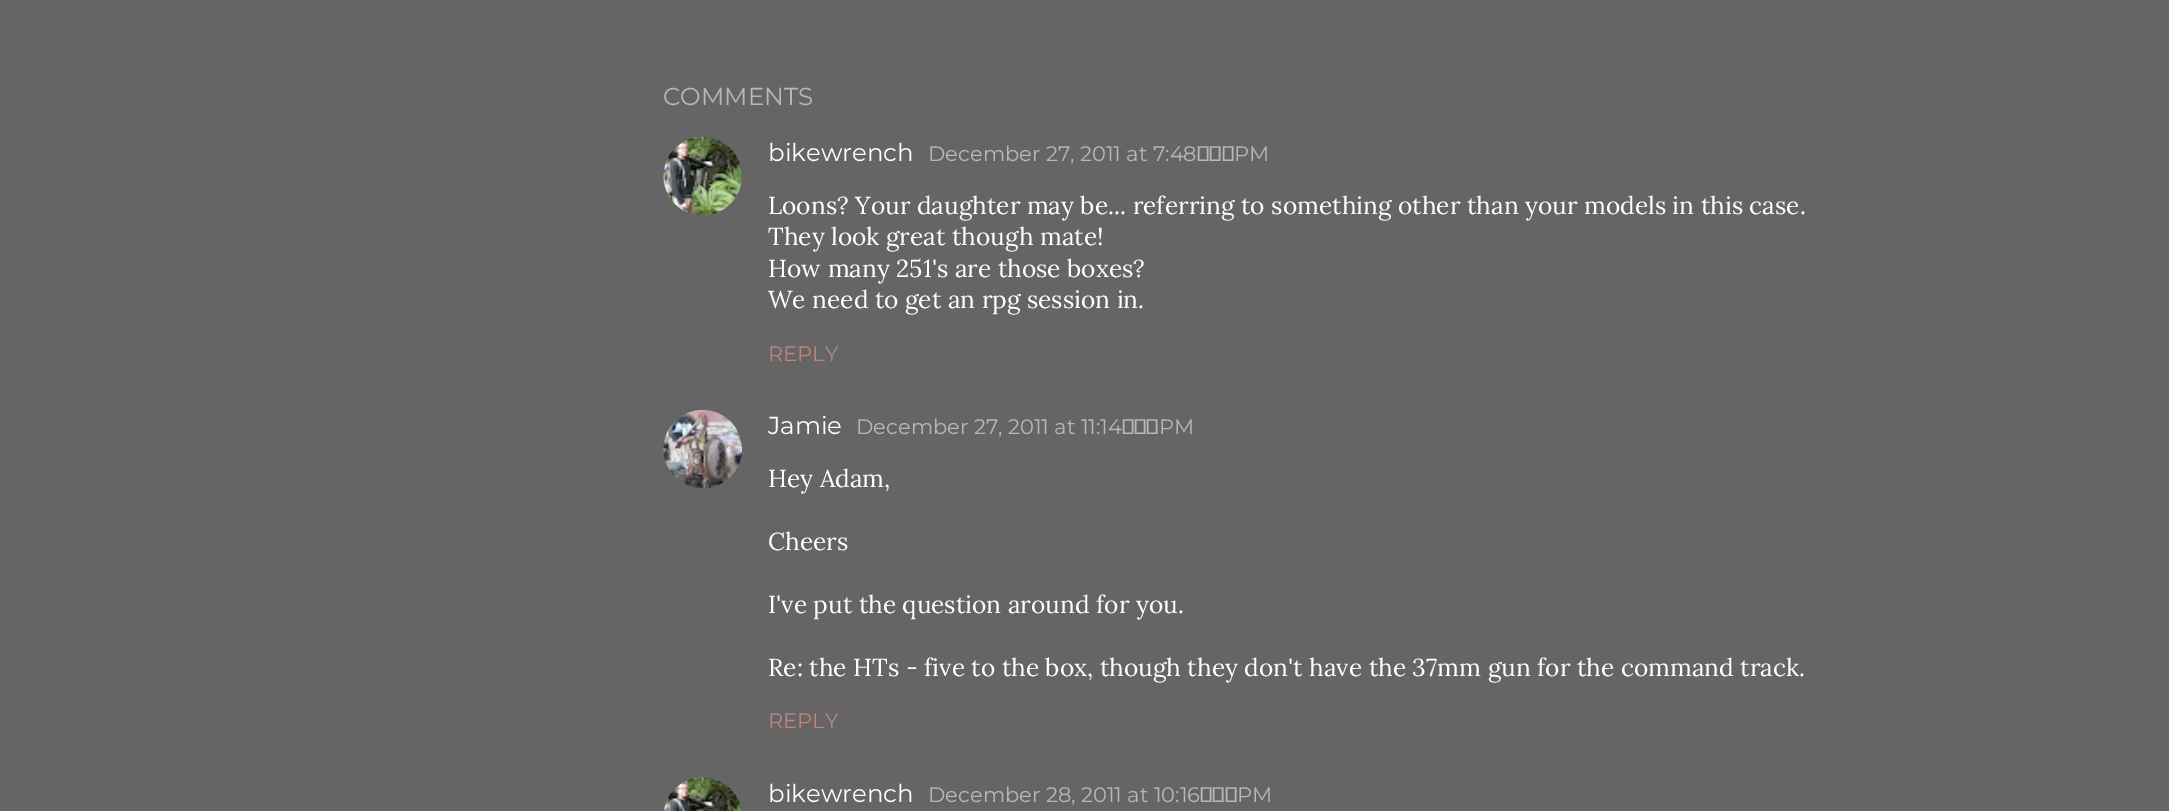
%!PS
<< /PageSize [2169 811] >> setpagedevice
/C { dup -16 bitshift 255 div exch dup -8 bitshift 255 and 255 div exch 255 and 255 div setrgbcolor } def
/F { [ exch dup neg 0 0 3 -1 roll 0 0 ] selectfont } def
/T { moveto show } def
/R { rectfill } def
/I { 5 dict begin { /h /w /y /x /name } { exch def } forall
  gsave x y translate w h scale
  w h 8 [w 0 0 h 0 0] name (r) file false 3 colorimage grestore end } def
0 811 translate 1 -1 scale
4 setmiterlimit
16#656565 C
0 0 2169 811 R
/Montserrat-Regular 24.5 F
16#B8B8B8 C
(COMMENTS) 663 105 T
(1.rgb) 663 136 79 80 I
16#FFFFFF C
(bikewrench) 768 161 T
/Montserrat-Regular 21 F
16#B8B8B8 C
(December 27, 2011 at 7:48 PM) 928 161 T
/Lora-Regular 24.5 F
16#FFFFFF C
(Loons? Your daughter may be... referring to something other than your models in this case.) 768 214 T
(They look great though mate!) 768 245 T
(How many 251's are those boxes?) 768 277 T
(We need to get an rpg session in.) 768 308 T
/Montserrat-Regular 21 F
16#C38282 C
(REPLY) 768 361 T
(2.rgb) 663 409 79 80 I
/Montserrat-Regular 24.5 F
16#FFFFFF C
(Jamie) 768 434 T
/Montserrat-Regular 21 F
16#B8B8B8 C
(December 27, 2011 at 11:14 PM) 856 434 T
/Lora-Regular 24.5 F
16#FFFFFF C
(Hey Adam,) 768 487 T
(Cheers) 768 550 T
(I've put the question around for you.) 768 613 T
(Re: the HTs - five to the box, though they don't have the 37mm gun for the command track.) 768 676 T
/Montserrat-Regular 21 F
16#C38282 C
(REPLY) 768 728 T
(3.rgb) 663 777 79 34 I
/Montserrat-Regular 24.5 F
16#FFFFFF C
(bikewrench) 768 802 T
/Montserrat-Regular 21 F
16#B8B8B8 C
(December 28, 2011 at 10:16 PM) 928 802 T
showpage
